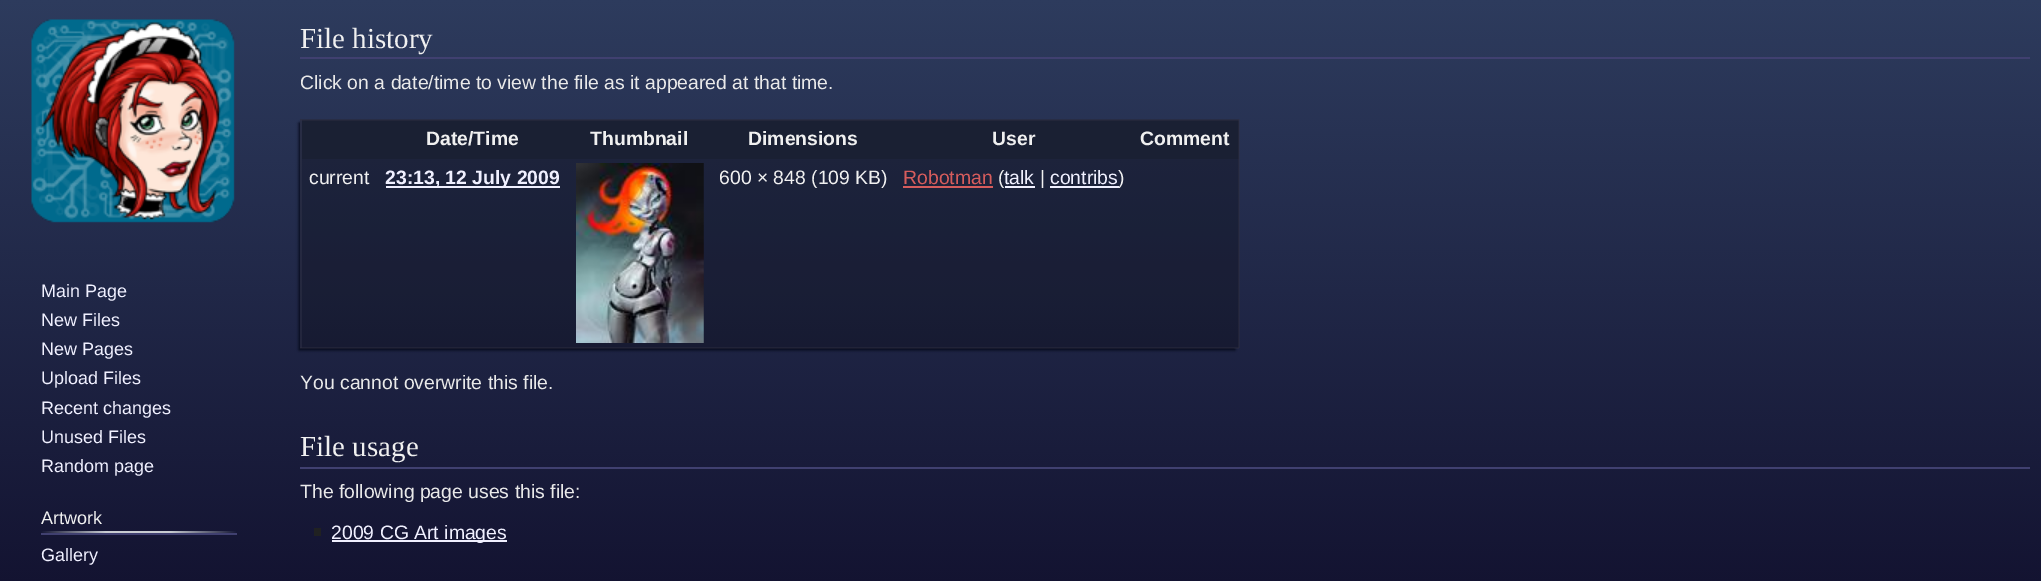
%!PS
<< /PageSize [2041 581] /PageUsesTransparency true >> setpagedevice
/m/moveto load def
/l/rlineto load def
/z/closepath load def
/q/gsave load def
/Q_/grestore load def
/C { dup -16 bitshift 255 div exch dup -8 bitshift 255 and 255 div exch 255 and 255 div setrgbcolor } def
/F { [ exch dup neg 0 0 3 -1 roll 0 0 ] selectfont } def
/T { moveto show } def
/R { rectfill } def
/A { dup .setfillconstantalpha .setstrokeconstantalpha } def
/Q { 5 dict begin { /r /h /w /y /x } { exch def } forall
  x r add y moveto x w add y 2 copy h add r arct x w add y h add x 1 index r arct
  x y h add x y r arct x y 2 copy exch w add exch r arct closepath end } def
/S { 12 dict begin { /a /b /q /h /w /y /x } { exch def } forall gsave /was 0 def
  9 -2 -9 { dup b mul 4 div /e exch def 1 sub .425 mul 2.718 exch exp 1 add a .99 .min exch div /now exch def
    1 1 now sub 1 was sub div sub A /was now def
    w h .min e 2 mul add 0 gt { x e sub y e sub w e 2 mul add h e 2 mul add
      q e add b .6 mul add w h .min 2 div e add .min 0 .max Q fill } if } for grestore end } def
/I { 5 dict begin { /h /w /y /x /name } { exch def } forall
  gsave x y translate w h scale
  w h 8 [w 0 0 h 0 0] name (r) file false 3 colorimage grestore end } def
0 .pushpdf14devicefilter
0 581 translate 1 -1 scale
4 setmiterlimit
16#FFFFFF C
0 0 2041 581 R
(1.rgb) 0 0 2041 581 I
(2.rgb) 31 19 204 204 I
/LiberationSans-Regular 18 F
16#F0F0FF C
(Main Page) 41 297 T
(New Files) 41 326 T
(New Pages) 41 355 T
(Upload Files) 41 384 T
(Recent changes) 41 414 T
(Unused Files) 41 443 T
(Random page) 41 472 T
q 41 531 m 196 0 l 0 2 l -196 0 l z clip newpath
<< /ShadingType 2 /ColorSpace /DeviceRGB /Coords [41 532 237 532] /Extend [true true] /Function << /FunctionType 3 /Domain [0 1] /Functions [<< /FunctionType 2 /Domain [0 1] /C0 [.082 .09 .208] /C1 [.784 .8 .82] /N 1 >> << /FunctionType 2 /Domain [0 1] /C0 [.784 .8 .82] /C1 [.784 .8 .82] /N 1 >> << /FunctionType 2 /Domain [0 1] /C0 [.784 .8 .82] /C1 [.082 .09 .208] /N 1 >>] /Bounds [.33 .66] /Encode [0 1 0 1 0 1] >> >> shfill Q_
16#404070 C
41 533 196 2 R
16#F0F0F0 C
(Artwork) 41 524 T
16#F0F0FF C
(Gallery) 41 561 T
16#404070 C
300 57 1730 2 R
/LiberationSerif-Regular 29 F
16#F0F0F0 C
(File history) 300 48 T
/LiberationSans-Regular 19.4 F
16#E9E9E9 C
(Click on a date/time to view the file as it appeared at that time.) 300 89 T
q
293 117 m 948 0 l 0 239 l -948 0 l z 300 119 m 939 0 l 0 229 l -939 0 l z eoclip newpath
16#020617 C
299 123 936 227 0 1.5 1 S
Q_
0.2 A
16#0C0C12 C
300 119 939 229 R
1 A
16#1A2033 C
302 120 937 39 R
0.4 A
16#303042 C
300 119 939 2 R
0.2 A
16#0C0C18 C
1133 159 106 189 R
0.4 A
16#303042 C
1238 119 2 229 R
0.2 A
16#0C0C18 C
302 159 76 189 R
378 159 189 189 R
567 159 144 189 R
711 159 185 189 R
896 159 237 189 R
0.4 A
16#303042 C
300 347 939 2 R
300 119 2 229 R
/LiberationSans-Bold 19.4 F
1 A
16#F0F0F0 C
(Date/Time) 426 145 T
(Thumbnail) 590 145 T
(Dimensions) 748 145 T
(User) 992 145 T
(Comment) 1140 145 T
/LiberationSans-Regular 19.4 F
(current) 309 184 T
16#F0F0FF C
386 186 174 2 R
/LiberationSans-Bold 19.4 F
(23:13, 12 July 2009) 385 184 T
(3.rgb) 576 163 128 180 I
(4.rgb) 703 163 1 180 I
/LiberationSans-Regular 19.4 F
16#F0F0F0 C
(600 × 848 \(109 KB\)) 719 184 T
16#D65C5C C
(Robotman) 903 184 T
903 186 90 2 R
16#F0F0F0 C
(\() 998 184 T
16#F0F0FF C
1005 186 30 2 R
(talk) 1004 184 T
16#F0F0F0 C
(|) 1040 184 T
16#F0F0FF C
(contribs) 1050 184 T
1050 186 69 2 R
16#F0F0F0 C
(\)) 1118 184 T
16#E9E9E9 C
(You cannot overwrite this file.) 300 389 T
16#404070 C
300 467 1730 2 R
/LiberationSerif-Regular 29 F
16#F0F0F0 C
(File usage) 300 456 T
/LiberationSans-Regular 19.4 F
16#E9E9E9 C
(The following page uses this file:) 300 498 T
16#202122 C
314 528 7 8 R
16#F0F0FF C
332 540 175 2 R
(2009 CG Art images) 331 539 T
.poppdf14devicefilter showpage
